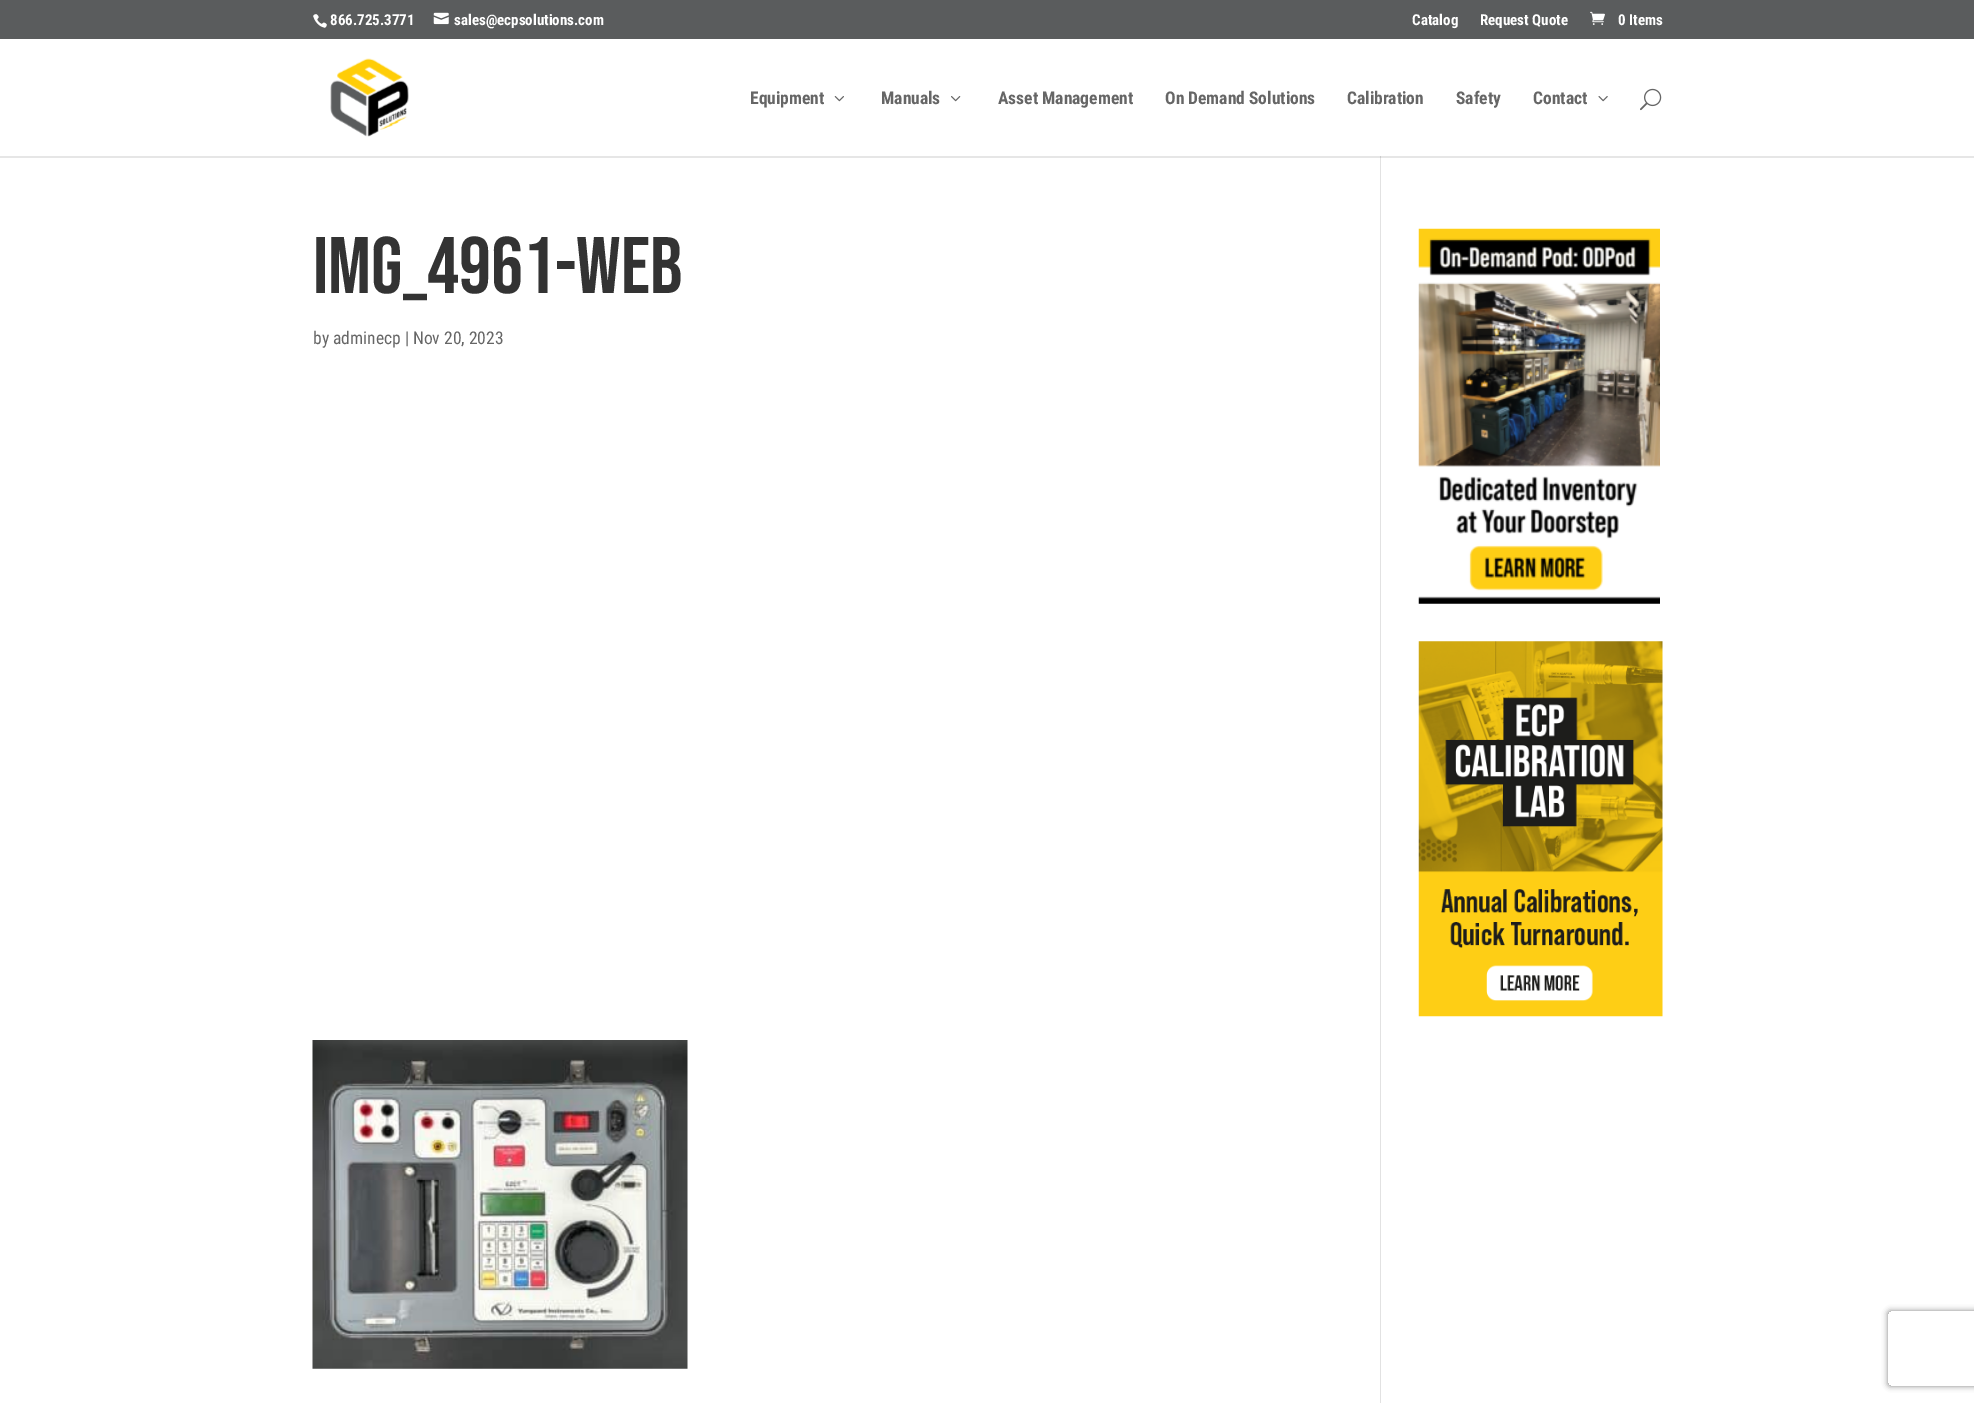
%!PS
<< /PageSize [1974 1403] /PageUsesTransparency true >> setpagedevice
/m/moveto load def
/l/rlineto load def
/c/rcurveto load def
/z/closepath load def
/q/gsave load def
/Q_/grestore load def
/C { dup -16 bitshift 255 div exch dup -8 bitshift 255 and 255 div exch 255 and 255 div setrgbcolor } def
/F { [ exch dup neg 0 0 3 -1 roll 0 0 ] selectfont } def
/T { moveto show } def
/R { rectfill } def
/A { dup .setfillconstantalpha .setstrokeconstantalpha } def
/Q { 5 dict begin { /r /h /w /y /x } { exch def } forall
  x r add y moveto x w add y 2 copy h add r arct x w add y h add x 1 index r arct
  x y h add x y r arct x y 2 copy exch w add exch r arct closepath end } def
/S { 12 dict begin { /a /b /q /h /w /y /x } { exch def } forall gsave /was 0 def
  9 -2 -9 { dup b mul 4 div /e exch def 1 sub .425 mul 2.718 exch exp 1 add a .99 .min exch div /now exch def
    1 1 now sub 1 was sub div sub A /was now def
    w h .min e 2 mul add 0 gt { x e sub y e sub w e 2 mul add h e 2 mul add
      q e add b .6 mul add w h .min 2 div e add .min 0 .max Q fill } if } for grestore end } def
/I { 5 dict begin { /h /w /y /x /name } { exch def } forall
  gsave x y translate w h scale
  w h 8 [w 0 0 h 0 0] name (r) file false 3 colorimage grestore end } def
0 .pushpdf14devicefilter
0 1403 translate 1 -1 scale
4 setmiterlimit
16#FFFFFF C
0 0 1974 1403 R
16#E6E6E6 C
0 156 1974 2 R
16#5A5C5D C
0 0 1974 39 R
(1.rgb) 313 14 14 14 I
/RobotoCondensed-Bold 15 F
16#FFFFFF C
(866.725.3771) 330 25 T
(2.rgb) 433 12 16 13 I
(sales@ecpsolutions.com) 454 25 T
(Catalog) 1412 25 T
(Request Quote) 1480 25 T
(3.rgb) 1590 11 15 14 I
(0 Items) 1618 25 T
(4.rgb) 330 58 79 79 I
/RobotoCondensed-Bold 17.5 F
16#666666 C
(Equipment) 750 104 T
(5.rgb) 834 96 10 6 I
(Manuals) 881 104 T
(6.rgb) 951 96 10 6 I
(Asset Management) 998 104 T
(On Demand Solutions) 1165 104 T
(Calibration) 1347 104 T
(Safety) 1456 104 T
(Contact) 1533 104 T
(7.rgb) 1598 96 10 6 I
(8.rgb) 1640 88 22 23 I
/BebasNeue-Regular 80 F
16#333333 C
(IMG_4961-web) 313 293 T
/RobotoCondensed-Regular 17.5 F
16#666666 C
(by adminecp | Nov 20, 2023) 313 344 T
(9.rgb) 312 1040 376 329 I
(10.rgb) 1418 228 242 376 I
(11.rgb) 1418 641 245 376 I
16#E2E2E2 C
1380 156 1 1247 R
16#CBCBCB C
1380 156 1 2 R
q
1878 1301 m 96 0 l 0 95 l -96 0 l z 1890.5 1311 m 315 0 l 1.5 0 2.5 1 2.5 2.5 c 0 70 l 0 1.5 -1 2.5 -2.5 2.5 c -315 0 l -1.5 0 -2.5 -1 -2.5 -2.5 c 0 -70 l 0 -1.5 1 -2.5 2.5 -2.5 c z eoclip newpath
16#808080 C
1888 1311 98 75 2.5 3 1 S
Q_
.poppdf14devicefilter showpage
